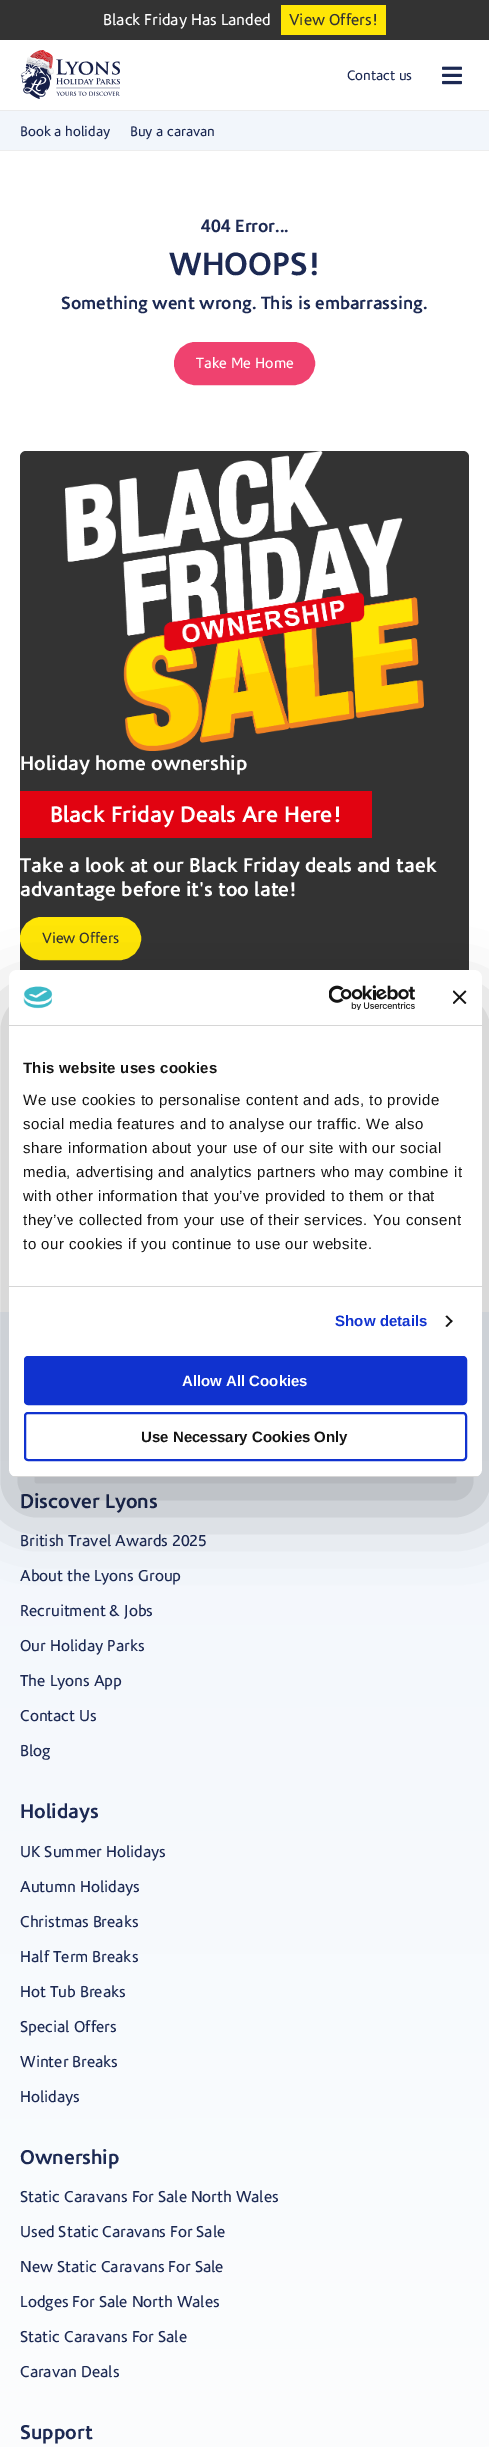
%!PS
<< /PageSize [489 2447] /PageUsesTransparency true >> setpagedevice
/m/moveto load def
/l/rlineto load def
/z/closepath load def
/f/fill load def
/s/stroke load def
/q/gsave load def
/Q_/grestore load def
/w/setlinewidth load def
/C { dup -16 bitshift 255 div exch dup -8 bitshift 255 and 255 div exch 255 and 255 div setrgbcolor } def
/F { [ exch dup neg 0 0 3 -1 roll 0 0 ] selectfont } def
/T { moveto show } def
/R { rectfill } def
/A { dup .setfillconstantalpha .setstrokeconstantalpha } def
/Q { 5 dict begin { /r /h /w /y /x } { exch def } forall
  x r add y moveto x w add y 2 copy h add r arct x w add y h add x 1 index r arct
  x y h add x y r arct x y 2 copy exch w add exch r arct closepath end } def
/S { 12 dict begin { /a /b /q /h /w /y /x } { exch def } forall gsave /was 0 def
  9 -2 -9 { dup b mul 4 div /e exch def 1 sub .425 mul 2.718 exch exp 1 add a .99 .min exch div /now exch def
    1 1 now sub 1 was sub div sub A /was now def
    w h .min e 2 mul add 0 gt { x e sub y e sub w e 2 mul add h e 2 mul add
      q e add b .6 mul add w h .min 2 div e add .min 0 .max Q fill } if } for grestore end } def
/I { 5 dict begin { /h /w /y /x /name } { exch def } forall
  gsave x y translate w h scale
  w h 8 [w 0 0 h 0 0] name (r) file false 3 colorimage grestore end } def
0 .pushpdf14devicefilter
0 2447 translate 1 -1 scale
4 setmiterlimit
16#FFFFFF C
0 0 489 2447 R
16#333333 C
0 0 489 40 R
/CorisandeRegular-Regular 16 F
16#FFFFFF C
(Black Friday Has Landed) 103 25 T
16#FFE606 C
281 5 105 30 R
16#333333 C
(View Offers!) 289 25 T
16#EBEBEB C
0 110 489 1 R
(1.rgb) 20 50 100 49 I
/CorisandeRegular-Regular 14 F
16#1C2953 C
(Contact us) 347 80 T
(2.rgb) 442 66 20 19 I
16#F2F6FB C
0 111 489 39 R
16#EDEDED C
0 150 489 1 R
16#1C2953 C
(Book a holiday) 20 136 T
(Buy a caravan) 130 136 T
/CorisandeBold-Bold 18 F
(404 Error...) 201 232 T
/CorisandeBold-Bold 32.5 F
(WHOOPS!) 169 275 T
/CorisandeBold-Bold 18 F
(Something went wrong. This is embarrassing.) 61 309 T
16#EF426F C
175 343 139 41 20.5 Q q f Q_
2 w
s
/CorisandeRegular-Regular 15 F
16#FFFFFF C
(Take Me Home) 196 368 T
16#333333 C
20 451 449 536 6 Q f
(3.rgb) 65 451 359 300 I
/CorisandeBold-Bold 20.25 F
16#FFFFFF C
(Holiday home ownership) 20 770 T
16#E10311 C
20 791 352 47 R
/CorisandeBold-Bold 22.75 F
16#FFFFFF C
(Black Friday Deals Are Here!) 50 822 T
/CorisandeBold-Bold 20.25 F
(Take a look at our Black Friday deals and taek) 20 872 T
(advantage before it's too late!) 20 896 T
16#FFE606 C
21 918 119 41 20.5 Q q f Q_
s
/CorisandeRegular-Regular 15 F
16#333333 C
(View Offers) 42 943 T
16#F2F6FB C
0 1312 489 149 R
q 0 1461 m 489 0 l 0 986 l -489 0 l z clip newpath
<< /ShadingType 2 /ColorSpace /DeviceRGB /Coords [244 1461 245 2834] /Extend [true true] /Function << /FunctionType 2 /Domain [0 1] /C0 [.953 .969 .988] /C1 [1 1 1] /N 1 >> >> shfill Q_
/CorisandeBold-Bold 20.25 F
16#1C2953 C
(Discover Lyons) 20 1508 T
/CorisandeRegular-Regular 16 F
(British Travel Awards 2025) 20 1546 T
(About the Lyons Group) 20 1581 T
(Recruitment & Jobs) 20 1616 T
(Our Holiday Parks) 20 1651 T
(The Lyons App) 20 1686 T
(Contact Us) 20 1721 T
(Blog) 20 1756 T
/CorisandeBold-Bold 20.25 F
(Holidays) 20 1818 T
/CorisandeRegular-Regular 16 F
(UK Summer Holidays) 20 1857 T
(Autumn Holidays) 20 1892 T
(Christmas Breaks) 20 1927 T
(Half Term Breaks) 20 1962 T
(Hot Tub Breaks) 20 1997 T
(Special Offers) 20 2032 T
(Winter Breaks) 20 2067 T
(Holidays) 20 2102 T
/CorisandeBold-Bold 20.25 F
(Ownership) 20 2164 T
/CorisandeRegular-Regular 16 F
(Static Caravans For Sale North Wales) 20 2202 T
(Used Static Caravans For Sale) 20 2237 T
(New Static Caravans For Sale) 20 2272 T
(Lodges For Sale North Wales) 20 2307 T
(Static Caravans For Sale) 20 2342 T
(Caravan Deals) 20 2377 T
/CorisandeBold-Bold 20.25 F
(Support) 20 2439 T
16#000000 C
9 1002 473 507 8 34 .3 S
16#FFFFFF C
9 970 473 507 8 Q f
16#D6D6D6 C
9 1025 473 1 R
(4.rgb) 23 986 30 23 I
(5.rgb) 329 985 86 25 I
(6.rgb) 453 990 14 14 I
9 1286 473 1 R
/LiberationSans-Bold 15 F
16#141414 C
23 1073 m .25 0 (This website uses cookies) ashow
/LiberationSans-Regular 15 F
23 1105 m .5 0 (We use cookies to personalise content and ads, to provide) ashow
23 1129 m .5 0 (social media features and to analyse our traffic. We also) ashow
23 1153 m .5 0 (share information about your use of our site with our social) ashow
23 1177 m .5 0 (media, advertising and analytics partners who may combine it) ashow
23 1201 m .5 0 (with other information that you’ve provided to them or that) ashow
23 1225 m .5 0 (they’ve collected from your use of their services. You consent) ashow
23 1249 m .5 0 (to our cookies if you continue to use our website.) ashow
/LiberationSans-Bold 15 F
16#1032CF C
335 1326 m .1 0 (Show details) ashow
16#141414 C
447 1315.5 m 5.5 5.5 l -1 1.5 l -6 -6 l z f
451.5 1320 m 1 1 l -5.5 6 l -1.5 -1 l z f
q
9 970 473 507 8 Q clip newpath
16#D6D6D6 C
9 1476 473 1 R
Q_
16#1032CF C
25 1357 441 47 3 Q q f Q_
s
16#FFFFFF C
(Allow All Cookies) 182 1386 T
16#1032CF C
25 1413 441 47 3 Q s
16#141414 C
(Use Necessary Cookies Only) 141 1442 T
.poppdf14devicefilter showpage
